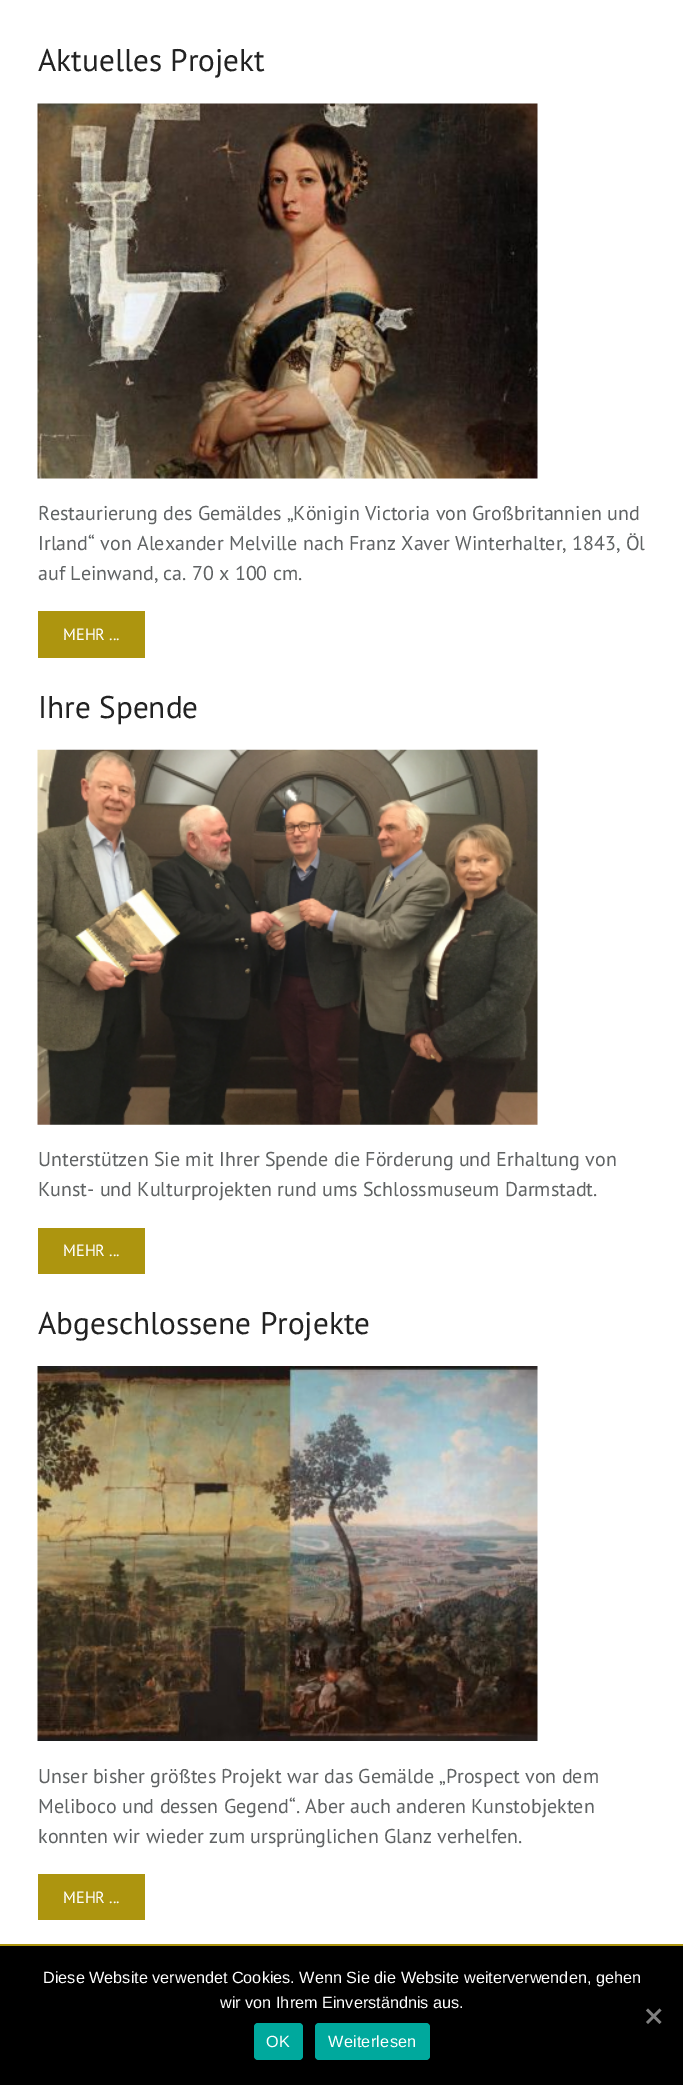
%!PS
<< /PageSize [683 2085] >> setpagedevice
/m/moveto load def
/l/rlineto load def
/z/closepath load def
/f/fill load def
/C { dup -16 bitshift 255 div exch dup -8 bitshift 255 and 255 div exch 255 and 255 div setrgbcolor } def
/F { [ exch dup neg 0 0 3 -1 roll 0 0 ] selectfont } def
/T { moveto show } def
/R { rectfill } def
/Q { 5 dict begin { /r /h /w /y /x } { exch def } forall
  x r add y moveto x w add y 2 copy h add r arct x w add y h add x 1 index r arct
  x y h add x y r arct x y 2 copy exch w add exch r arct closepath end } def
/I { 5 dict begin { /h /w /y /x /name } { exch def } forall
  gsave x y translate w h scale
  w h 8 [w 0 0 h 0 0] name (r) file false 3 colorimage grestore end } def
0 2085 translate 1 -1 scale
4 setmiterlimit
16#FFFFFF C
0 0 683 2085 R
/PTSans-Regular 31.25 F
16#222222 C
(Aktuelles Projekt) 38 71 T
(1.rgb) 37 103 501 376 I
/PTSans-Regular 20 F
16#5F6263 C
(Restaurierung des Gemäldes „Königin Victoria von Großbritannien und) 38 520 T
(Irland“ von Alexander Melville nach Franz Xaver Winterhalter, 1843, Öl) 38 550 T
(auf Leinwand, ca. 70 x 100 cm.) 38 580 T
16#AD950F C
38 611 107 47 R
/PTSans-Regular 16.25 F
16#FFFFFF C
(MEHR ...) 63 640 T
/PTSans-Regular 31.25 F
16#222222 C
(Ihre Spende) 38 718 T
(2.rgb) 37 749 501 376 I
/PTSans-Regular 20 F
16#5F6263 C
(Unterstützen Sie mit Ihrer Spende die Förderung und Erhaltung von) 38 1166 T
(Kunst- und Kulturprojekten rund ums Schlossmuseum Darmstadt.) 38 1196 T
16#AD950F C
38 1228 107 46 R
/PTSans-Regular 16.25 F
16#FFFFFF C
(MEHR ...) 63 1256 T
/PTSans-Regular 31.25 F
16#222222 C
(Abgeschlossene Projekte) 38 1334 T
(3.rgb) 37 1366 501 375 I
/PTSans-Regular 20 F
16#5F6263 C
(Unser bisher größtes Projekt war das Gemälde „Prospect von dem) 38 1783 T
(Meliboco und dessen Gegend“. Aber auch anderen Kunstobjekten) 38 1813 T
(konnten wir wieder zum ursprünglichen Glanz verhelfen.) 38 1843 T
16#AD950F C
38 1874 107 46 R
/PTSans-Regular 16.25 F
16#FFFFFF C
(MEHR ...) 63 1903 T
16#AD950F C
0 1944 683 2 R
16#000000 C
0 1946 683 139 R
/LiberationSans-Regular 16.25 F
16#FFFFFF C
(Diese Website verwendet Cookies. Wenn Sie die Website weiterverwenden, gehen) 43 1983 T
(wir von Ihrem Einverständnis aus.) 220 2008 T
16#808080 C
659.5 2008.5 m 2 2 l -13.5 13.5 l -2 -2 l z f
646 2010.5 m 2 -2 l 13.5 13.5 l -2 2 l z f
16#00A99D C
254 2023 49 37 4 Q f
16#FFFFFF C
266 2047 m .25 0 (OK) ashow
16#00A99D C
315 2023 115 37 4 Q f
16#FFFFFF C
328 2047 m .25 0 (Weiterlesen) ashow
showpage
